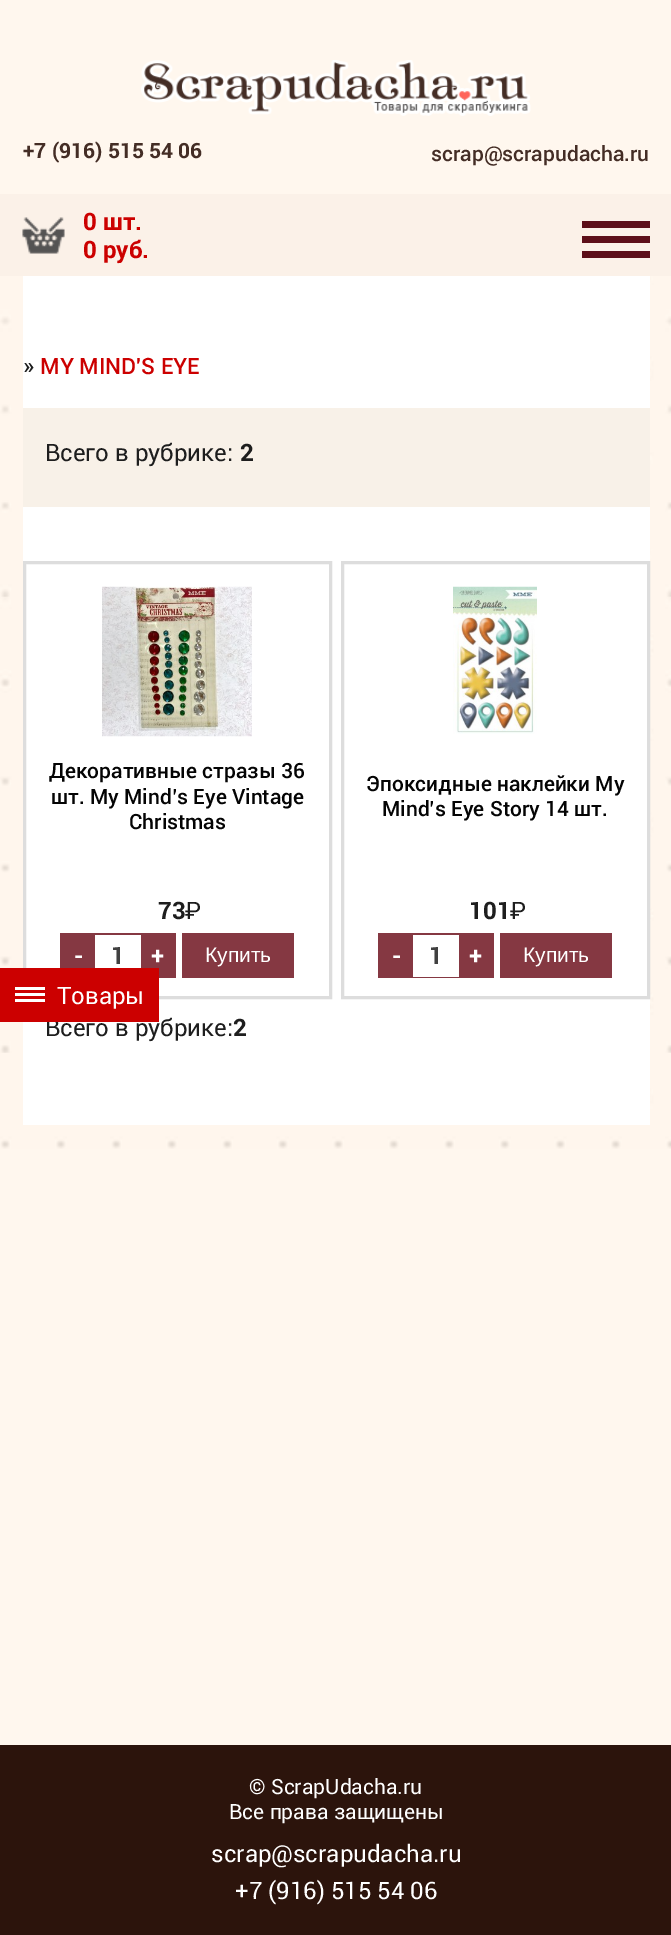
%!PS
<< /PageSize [671 1935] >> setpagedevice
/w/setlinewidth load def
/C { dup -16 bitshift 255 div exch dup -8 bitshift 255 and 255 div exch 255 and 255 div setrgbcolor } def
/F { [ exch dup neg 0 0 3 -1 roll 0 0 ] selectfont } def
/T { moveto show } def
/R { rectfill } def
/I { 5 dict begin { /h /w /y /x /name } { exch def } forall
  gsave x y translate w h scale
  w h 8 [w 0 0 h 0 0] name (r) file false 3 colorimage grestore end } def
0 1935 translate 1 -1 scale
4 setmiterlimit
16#FFF7EE C
0 0 671 1935 R
(1.rgb) 141 60 390 56 I
/Roboto-Bold 21 F
16#442D25 C
(+7 \(916\) 515 54 06) 23 158 T
/Roboto-Medium 21 F
(scrap@scrapudacha.ru) 431 161 T
16#FBF1E8 C
0 194 671 82 R
(2.rgb) 22 217 43 37 I
/Roboto-Bold 24 F
16#CC0000 C
(0 шт.) 83 230 T
(0 руб.) 83 258 T
16#5D0F19 C
582 236 68 7 R
582 221 68 7 R
582 251 68 7 R
(3.rgb) 0 276 671 873 I
16#FFFFFF C
23 276 627 849 R
/Roboto-Regular 24 F
16#1E1E1E C
(») 23 374 T
/Roboto-Medium 22.5 F
16#CC0000 C
(MY MIND'S EYE) 40 374 T
16#F8F1E8 C
23 408 627 99 R
/Roboto-Regular 24 F
16#1E1E1E C
(Всего в рубрике:) 45 461 T
/Roboto-Bold 24 F
(2) 240 461 T
16#DDDDDD C
3 w
24.5 562.5 306 435 rectstroke
(4.rgb) 102 586 150 151 I
/Roboto-Medium 21 F
16#040404 C
(Декоративные стразы 36) 49 778 T
(шт. My Mind’s Eye Vintage) 51 804 T
(Christmas) 129 829 T
/Roboto-Bold 24 F
16#1E1E1E C
(73) 158 919 T
/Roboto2-Regular 24 F
(₽) 185 919 T
16#853842 C
60 933 116 45 R
/Roboto-Bold 24 F
16#FFFFFF C
(-) 74 964 T
95 935 46 33 R
16#404040 C
(1) 111 964 T
16#FFFFFF C
(+) 151 964 T
16#853842 C
182 933 112 45 R
/LiberationSans-Regular 21 F
16#FFFFFF C
(Купить) 205 962 T
16#DDDDDD C
342.5 562.5 306 435 rectstroke
(5.rgb) 453 586 84 148 I
/Roboto-Medium 21 F
16#040404 C
(Эпоксидные наклейки My) 366 791 T
(Mind’s Eye Story 14 шт.) 382 816 T
/Roboto-Bold 24 F
16#1E1E1E C
(101) 469 919 T
/Roboto2-Regular 24 F
(₽) 510 919 T
16#853842 C
378 933 116 45 R
/Roboto-Bold 24 F
16#FFFFFF C
(-) 392 964 T
413 935 46 42 R
16#404040 C
(1) 429 964 T
16#FFFFFF C
(+) 469 964 T
16#853842 C
500 933 112 45 R
/LiberationSans-Regular 21 F
16#FFFFFF C
(Купить) 523 962 T
/Roboto-Regular 24 F
16#1E1E1E C
(Всего в рубрике:) 45 1036 T
/Roboto-Bold 24 F
(2) 233 1036 T
16#CC0000 C
0 968 159 54 R
16#FFFFFF C
15 993 30 3 R
15 987 30 3 R
15 999 30 3 R
/Roboto-Regular 24 F
(Товары) 57 1004 T
16#2C140C C
0 1745 671 190 R
/Roboto-Regular 21 F
16#FFFFFF C
(© ScrapUdacha.ru) 249 1794 T
(Все права защищены) 229 1819 T
/Roboto-Regular 24 F
(scrap@scrapudacha.ru) 211 1862 T
(+7 \(916\) 515 54 06) 235 1899 T
showpage
